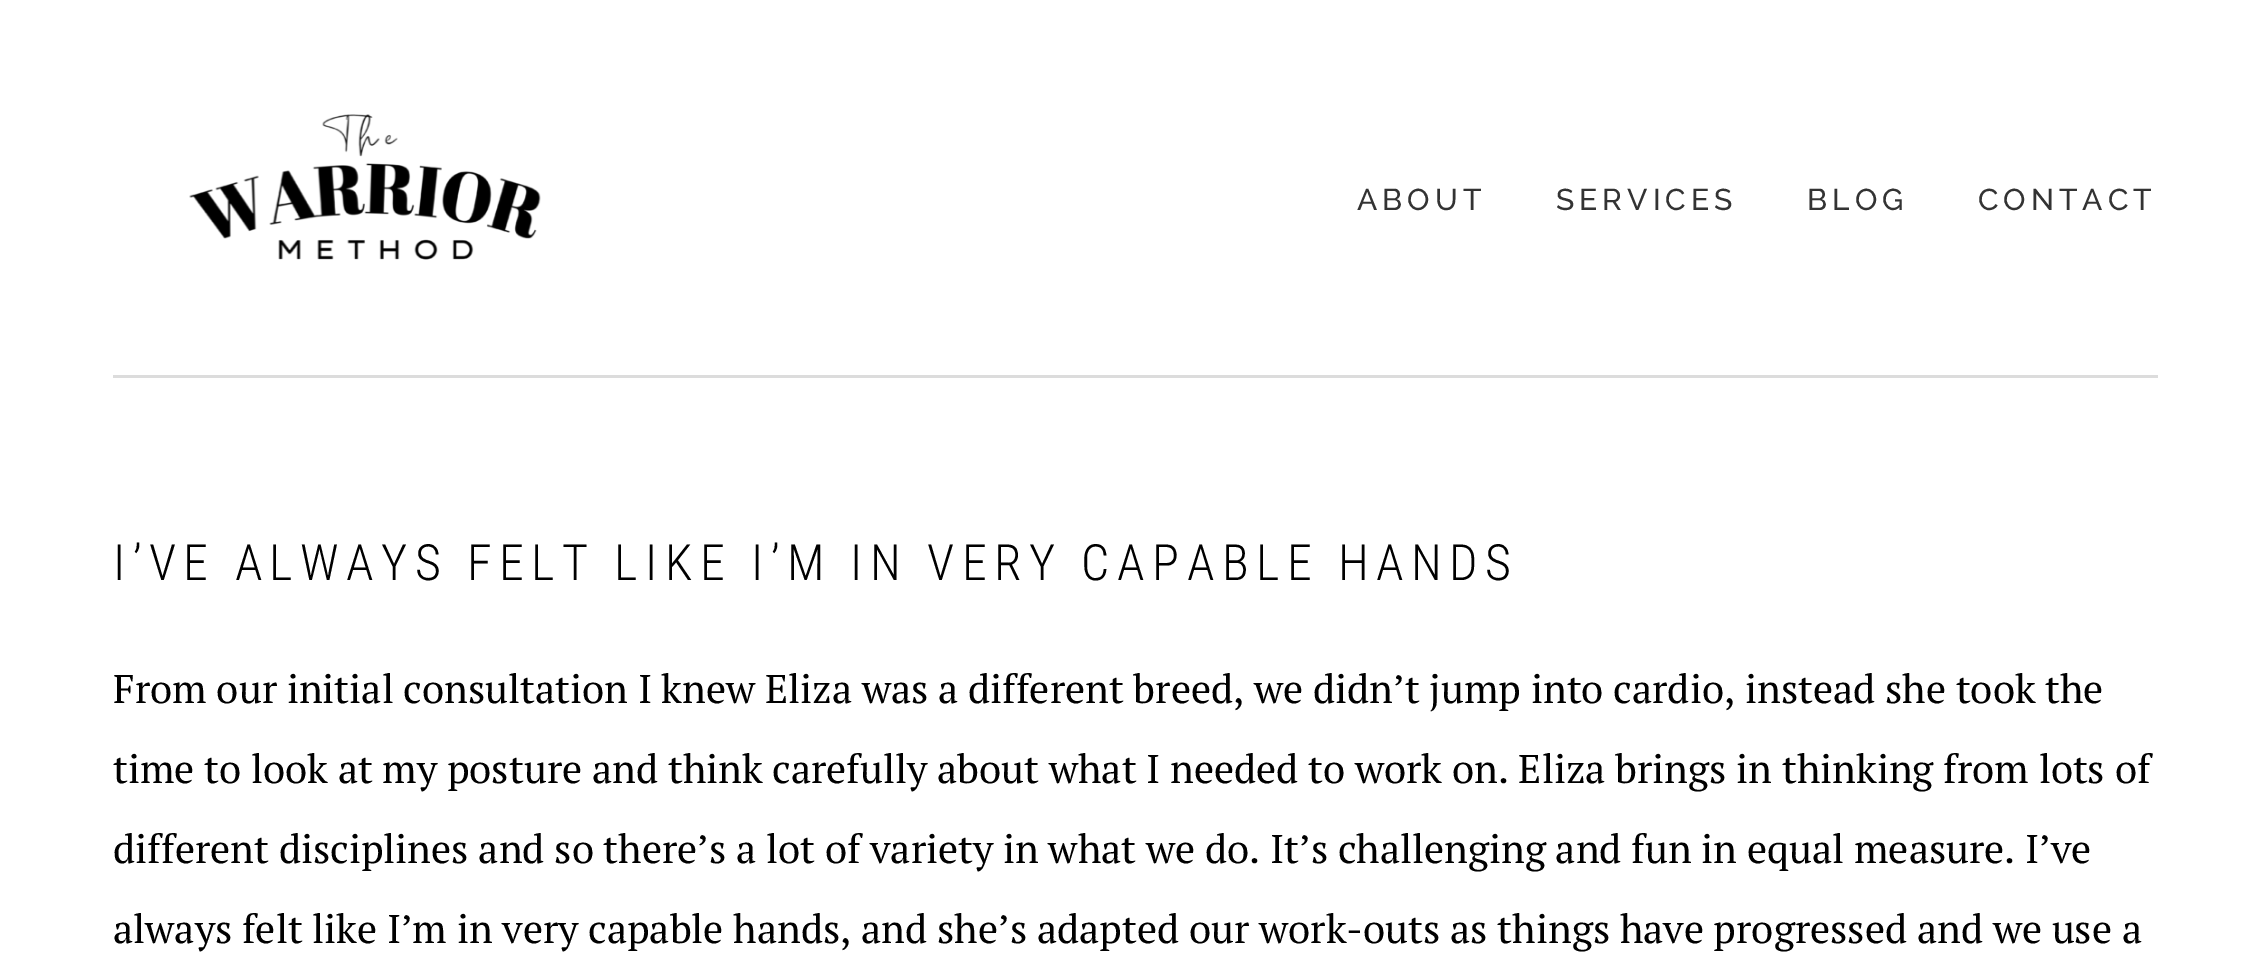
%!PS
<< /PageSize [2268 954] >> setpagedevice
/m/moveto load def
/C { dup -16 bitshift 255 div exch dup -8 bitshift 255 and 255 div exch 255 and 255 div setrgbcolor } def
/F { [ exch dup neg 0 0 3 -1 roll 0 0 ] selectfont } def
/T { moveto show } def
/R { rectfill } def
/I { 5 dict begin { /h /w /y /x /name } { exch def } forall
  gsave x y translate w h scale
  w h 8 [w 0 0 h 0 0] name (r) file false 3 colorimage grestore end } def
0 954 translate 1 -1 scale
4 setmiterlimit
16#FFFFFF C
0 0 2268 954 R
(1.rgb) 189 114 352 146 I
/Raleway-Medium 30 F
16#333333 C
1357 210 m 5 0 (ABOUT) ashow
1556 210 m 5 0 (SERVICES) ashow
1807 210 m 5 0 (BLOG) ashow
1978 210 m 5 0 (CONTACT) ashow
16#DCDCDC C
113 375 2045 3 R
/RobotoCondensed-Light 50 F
16#000000 C
113 580 m 7.5 0 (I’VE ALWAYS FELT LIKE I’M IN VERY CAPABLE HANDS) ashow
/PTSerif-Regular 40 F
(From our initial consultation I knew Eliza was a different breed, we didn’t jump into cardio, instead she took the) 113 703 T
(time to look at my posture and think carefully about what I needed to work on. Eliza brings in thinking from lots of) 113 783 T
(different disciplines and so there’s a lot of variety in what we do. It’s challenging and fun in equal measure. I’ve) 113 863 T
(always felt like I’m in very capable hands, and she’s adapted our work-outs as things have progressed and we use a) 113 943 T
showpage
